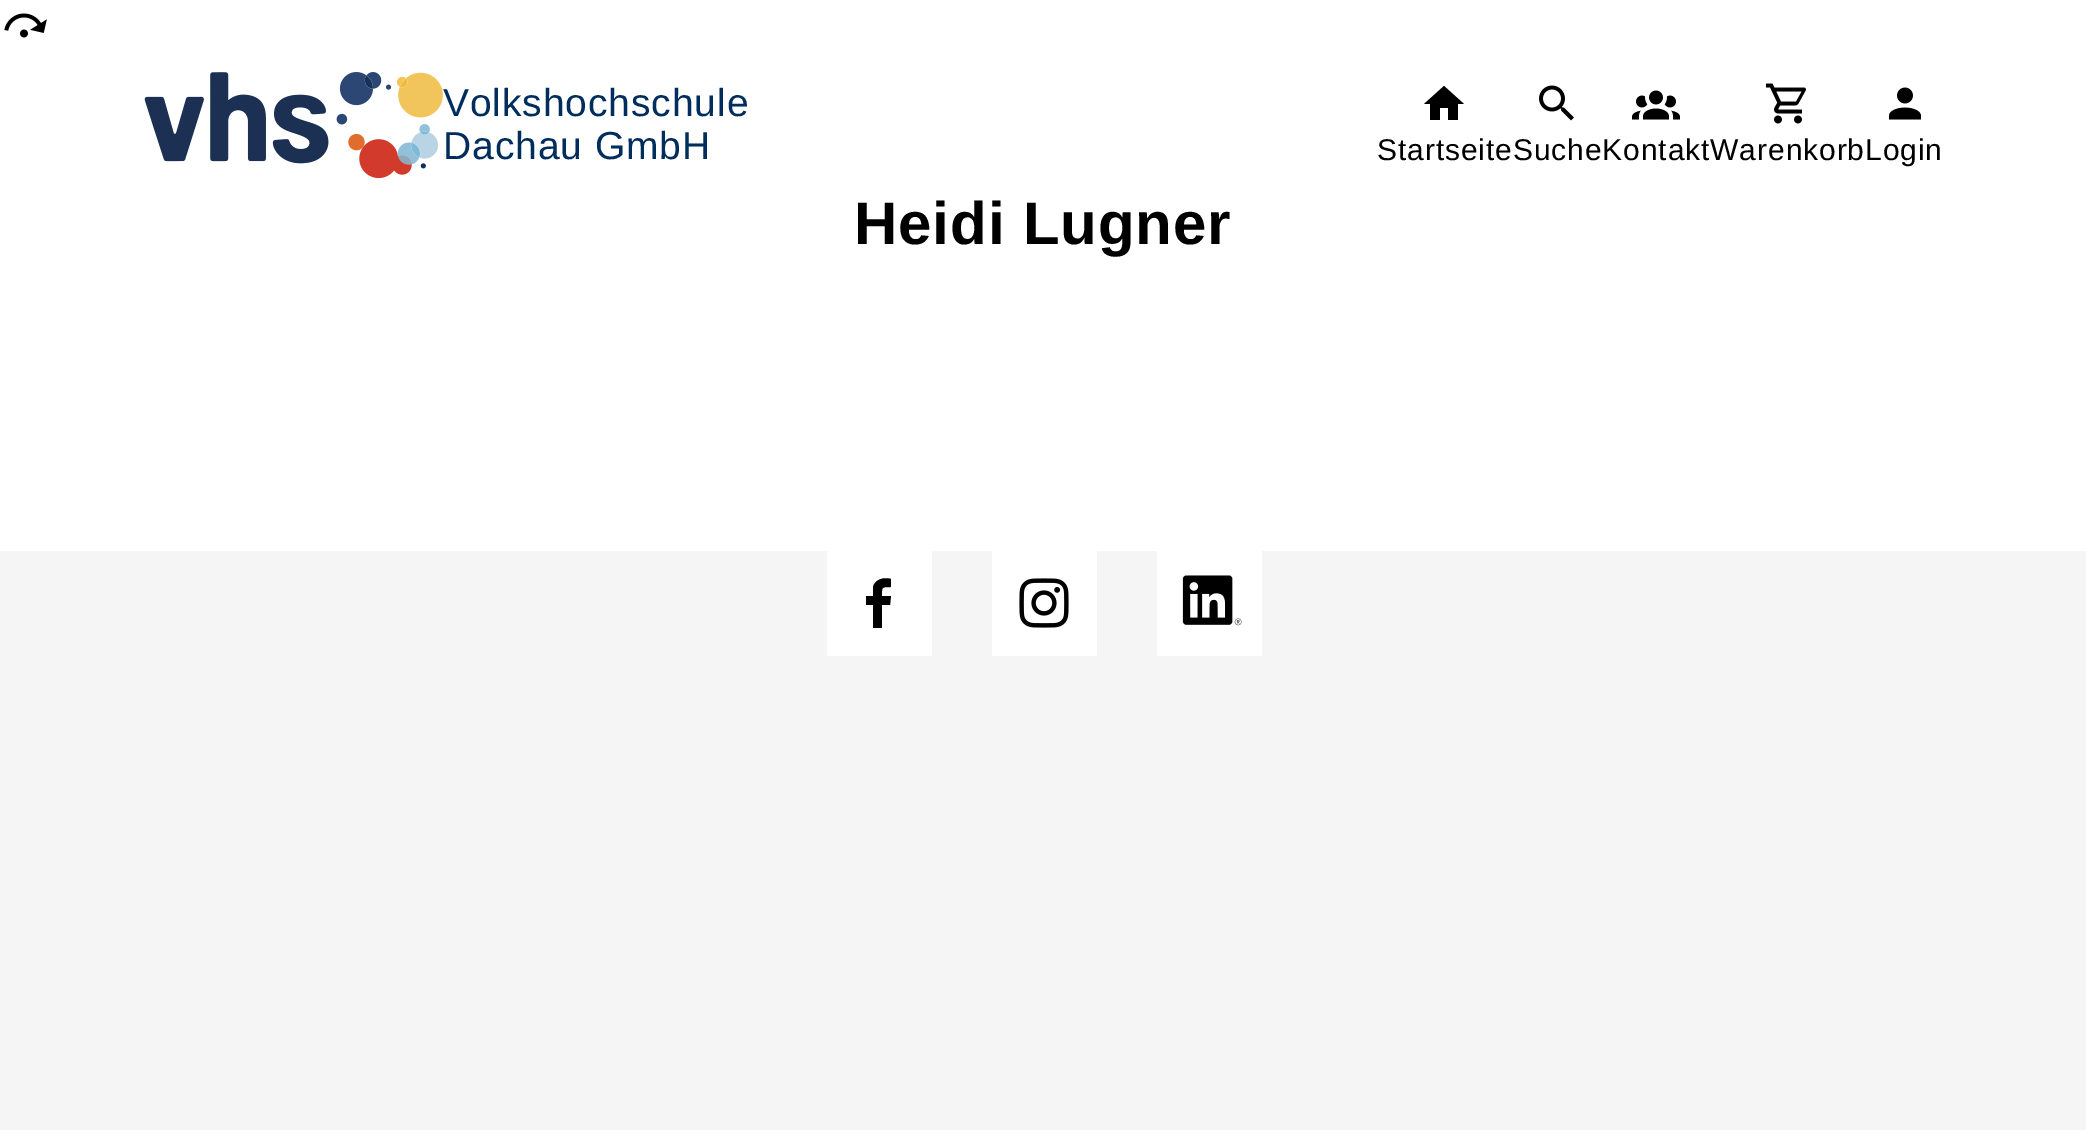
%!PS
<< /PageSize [2086 1130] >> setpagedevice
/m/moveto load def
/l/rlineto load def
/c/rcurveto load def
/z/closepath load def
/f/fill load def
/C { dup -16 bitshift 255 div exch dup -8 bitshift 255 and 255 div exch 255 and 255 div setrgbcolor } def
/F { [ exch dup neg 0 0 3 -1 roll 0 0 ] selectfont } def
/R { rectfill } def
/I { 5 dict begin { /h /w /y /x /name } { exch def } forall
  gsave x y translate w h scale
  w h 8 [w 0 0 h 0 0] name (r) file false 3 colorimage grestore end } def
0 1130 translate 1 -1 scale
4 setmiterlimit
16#FFFFFF C
0 0 2086 1130 R
(1.rgb) 4 13 43 25 I
(2.rgb) 144 72 299 107 I
/LiberationSans-Regular 39 F
16#002D5C C
443 116 m .9 0 (Volkshochschule) ashow
443 159 m .9 0 (Dachau GmbH) ashow
(3.rgb) 1539 85 35 36 I
(4.rgb) 1632 90 48 30 I
(5.rgb) 1766 83 40 41 I
(6.rgb) 1889 87 32 33 I
16#000000 C
1440 120 m 0 -12 l 8 0 l 0 12 l 10 0 l 0 -16 l 6 0 l -20 -18 l -20 18 l 6 0 l 0 16 l z f
/LiberationSans-Regular 30 F
1377 160 m .9 0 (StartseiteSucheKontaktWarenkorbLogin) ashow
/LiberationSans-Bold 60 F
854 244 m .9 0 (Heidi Lugner) ashow
16#F5F5F5 C
0 551 2086 579 R
16#FFFFFF C
827 551 105 105 R
16#000000 C
882 628 m 0 -23 l 8 0 l 1 -9 l -9 0 l 0 -9 -1 -9 9 -9 c 0 -8 l -7 -2 -16 0 -18 8 c 0 9 l -7 0 l 0 9 l 7 0 l 0 23 l z f
16#FFFFFF C
992 551 105 105 R
(7.rgb) 1019 578 50 50 I
1157 551 105 105 R
(8.rgb) 1182 575 60 51 I
showpage
